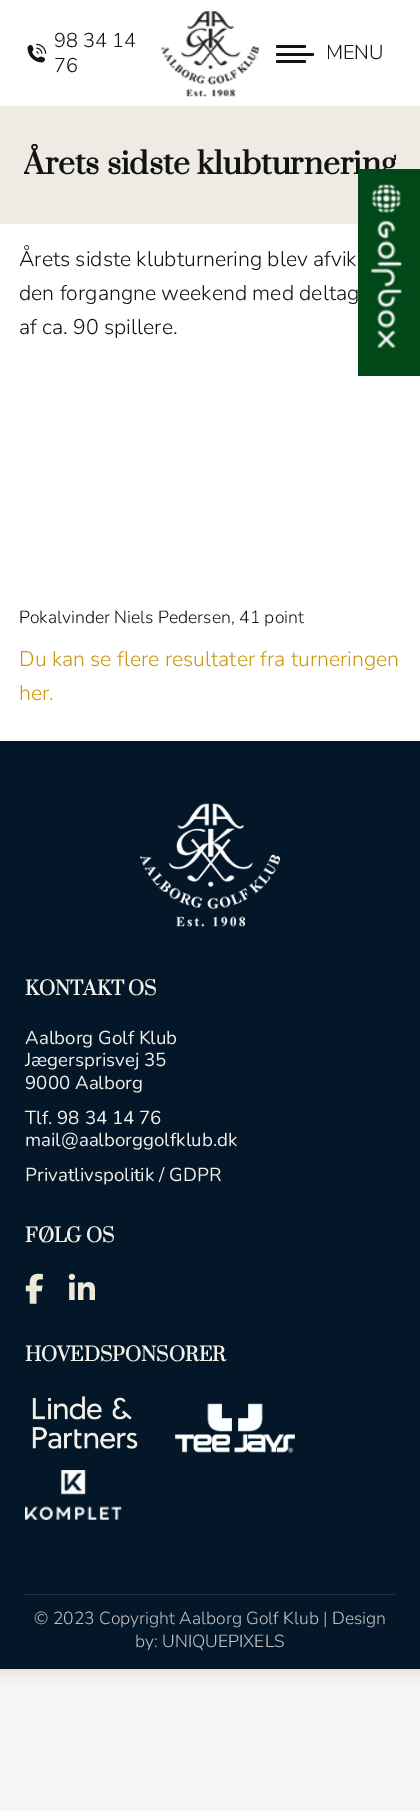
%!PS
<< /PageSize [420 1811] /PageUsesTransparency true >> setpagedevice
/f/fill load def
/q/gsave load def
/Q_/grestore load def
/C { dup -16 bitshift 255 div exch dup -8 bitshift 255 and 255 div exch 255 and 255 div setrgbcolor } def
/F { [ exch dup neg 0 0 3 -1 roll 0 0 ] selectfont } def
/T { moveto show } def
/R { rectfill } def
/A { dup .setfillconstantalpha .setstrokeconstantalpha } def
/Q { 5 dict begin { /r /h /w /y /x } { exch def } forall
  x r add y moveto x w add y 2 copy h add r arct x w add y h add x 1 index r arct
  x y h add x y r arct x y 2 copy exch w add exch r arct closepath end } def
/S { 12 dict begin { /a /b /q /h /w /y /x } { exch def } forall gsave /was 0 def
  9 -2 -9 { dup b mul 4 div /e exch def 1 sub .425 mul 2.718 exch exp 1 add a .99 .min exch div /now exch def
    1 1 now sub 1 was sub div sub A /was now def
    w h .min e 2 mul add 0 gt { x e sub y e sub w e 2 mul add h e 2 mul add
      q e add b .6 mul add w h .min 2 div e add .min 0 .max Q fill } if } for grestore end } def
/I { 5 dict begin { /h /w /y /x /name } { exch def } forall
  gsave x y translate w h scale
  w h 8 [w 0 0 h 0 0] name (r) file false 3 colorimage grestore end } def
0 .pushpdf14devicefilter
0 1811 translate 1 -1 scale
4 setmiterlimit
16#F6F5F4 C
0 0 420 1811 R
16#000000 C
0 0 420 1669 0 7.5 .15 S
16#FFFFFF C
0 0 420 741 R
/Nunito-Light 20 F
16#131313 C
(98 34 14) 54 47 T
(1.rgb) 27 43 20 20 I
(76) 54 72 T
(2.rgb) 161 11 98 86 I
276 45 30 3 1.5 Q f
276 53 38 3 1.5 Q f
276 60 30 3 1.5 Q f
(MENU) 326 59 T
16#EDEBE4 C
0 106 420 118 R
q
24 144 372 42 rectclip
/Prata-Bold 30 F
16#131313 C
(Årets sidste klubturnering) 23 174 T
Q_
/Nunito-Light 21.25 F
16#131313 C
(Årets sidste klubturnering blev afvik) 19 266 T
(den forgangne weekend med deltag) 19 300 T
(af ca. 90 spillere.) 19 334 T
/Nunito-Light 17.5 F
(Pokalvinder Niels Pedersen, 41 point) 19 623 T
/Nunito-Light 21.25 F
16#CC970E C
(Du kan se flere resultater fra turneringen) 19 666 T
(her.) 19 700 T
16#031729 C
0 741 420 928 R
(3.rgb) 140 803 140 124 I
/Prata-Bold 18.75 F
16#F2F0E8 C
(KONTAKT OS) 25 995 T
/Nunito-Regular 18.75 F
(Aalborg Golf Klub) 25 1044 T
(Jægersprisvej 35) 25 1066 T
(9000 Aalborg) 25 1089 T
(Tlf. 98 34 14 76) 25 1124 T
(mail@aalborggolfklub.dk) 25 1146 T
(Privatlivspolitik / GDPR) 25 1181 T
/Prata-Bold 18.75 F
(FØLG OS) 25 1242 T
(4.rgb) 25 1273 18 31 I
(5.rgb) 68 1273 27 27 I
(HOVEDSPONSORER) 25 1361 T
(6.rgb) 32 1396 106 53 I
(7.rgb) 175 1403 120 50 I
(8.rgb) 25 1470 97 50 I
16#213343 C
25 1594 370 1 R
/Nunito-Light 17.5 F
16#C4C4C4 C
(© 2023 Copyright Aalborg Golf Klub | Design) 34 1624 T
(by: UNIQUEPIXELS) 135 1647 T
16#004817 C
358 169 62 207 R
(9.rgb) 370 184 32 164 I
.poppdf14devicefilter showpage
